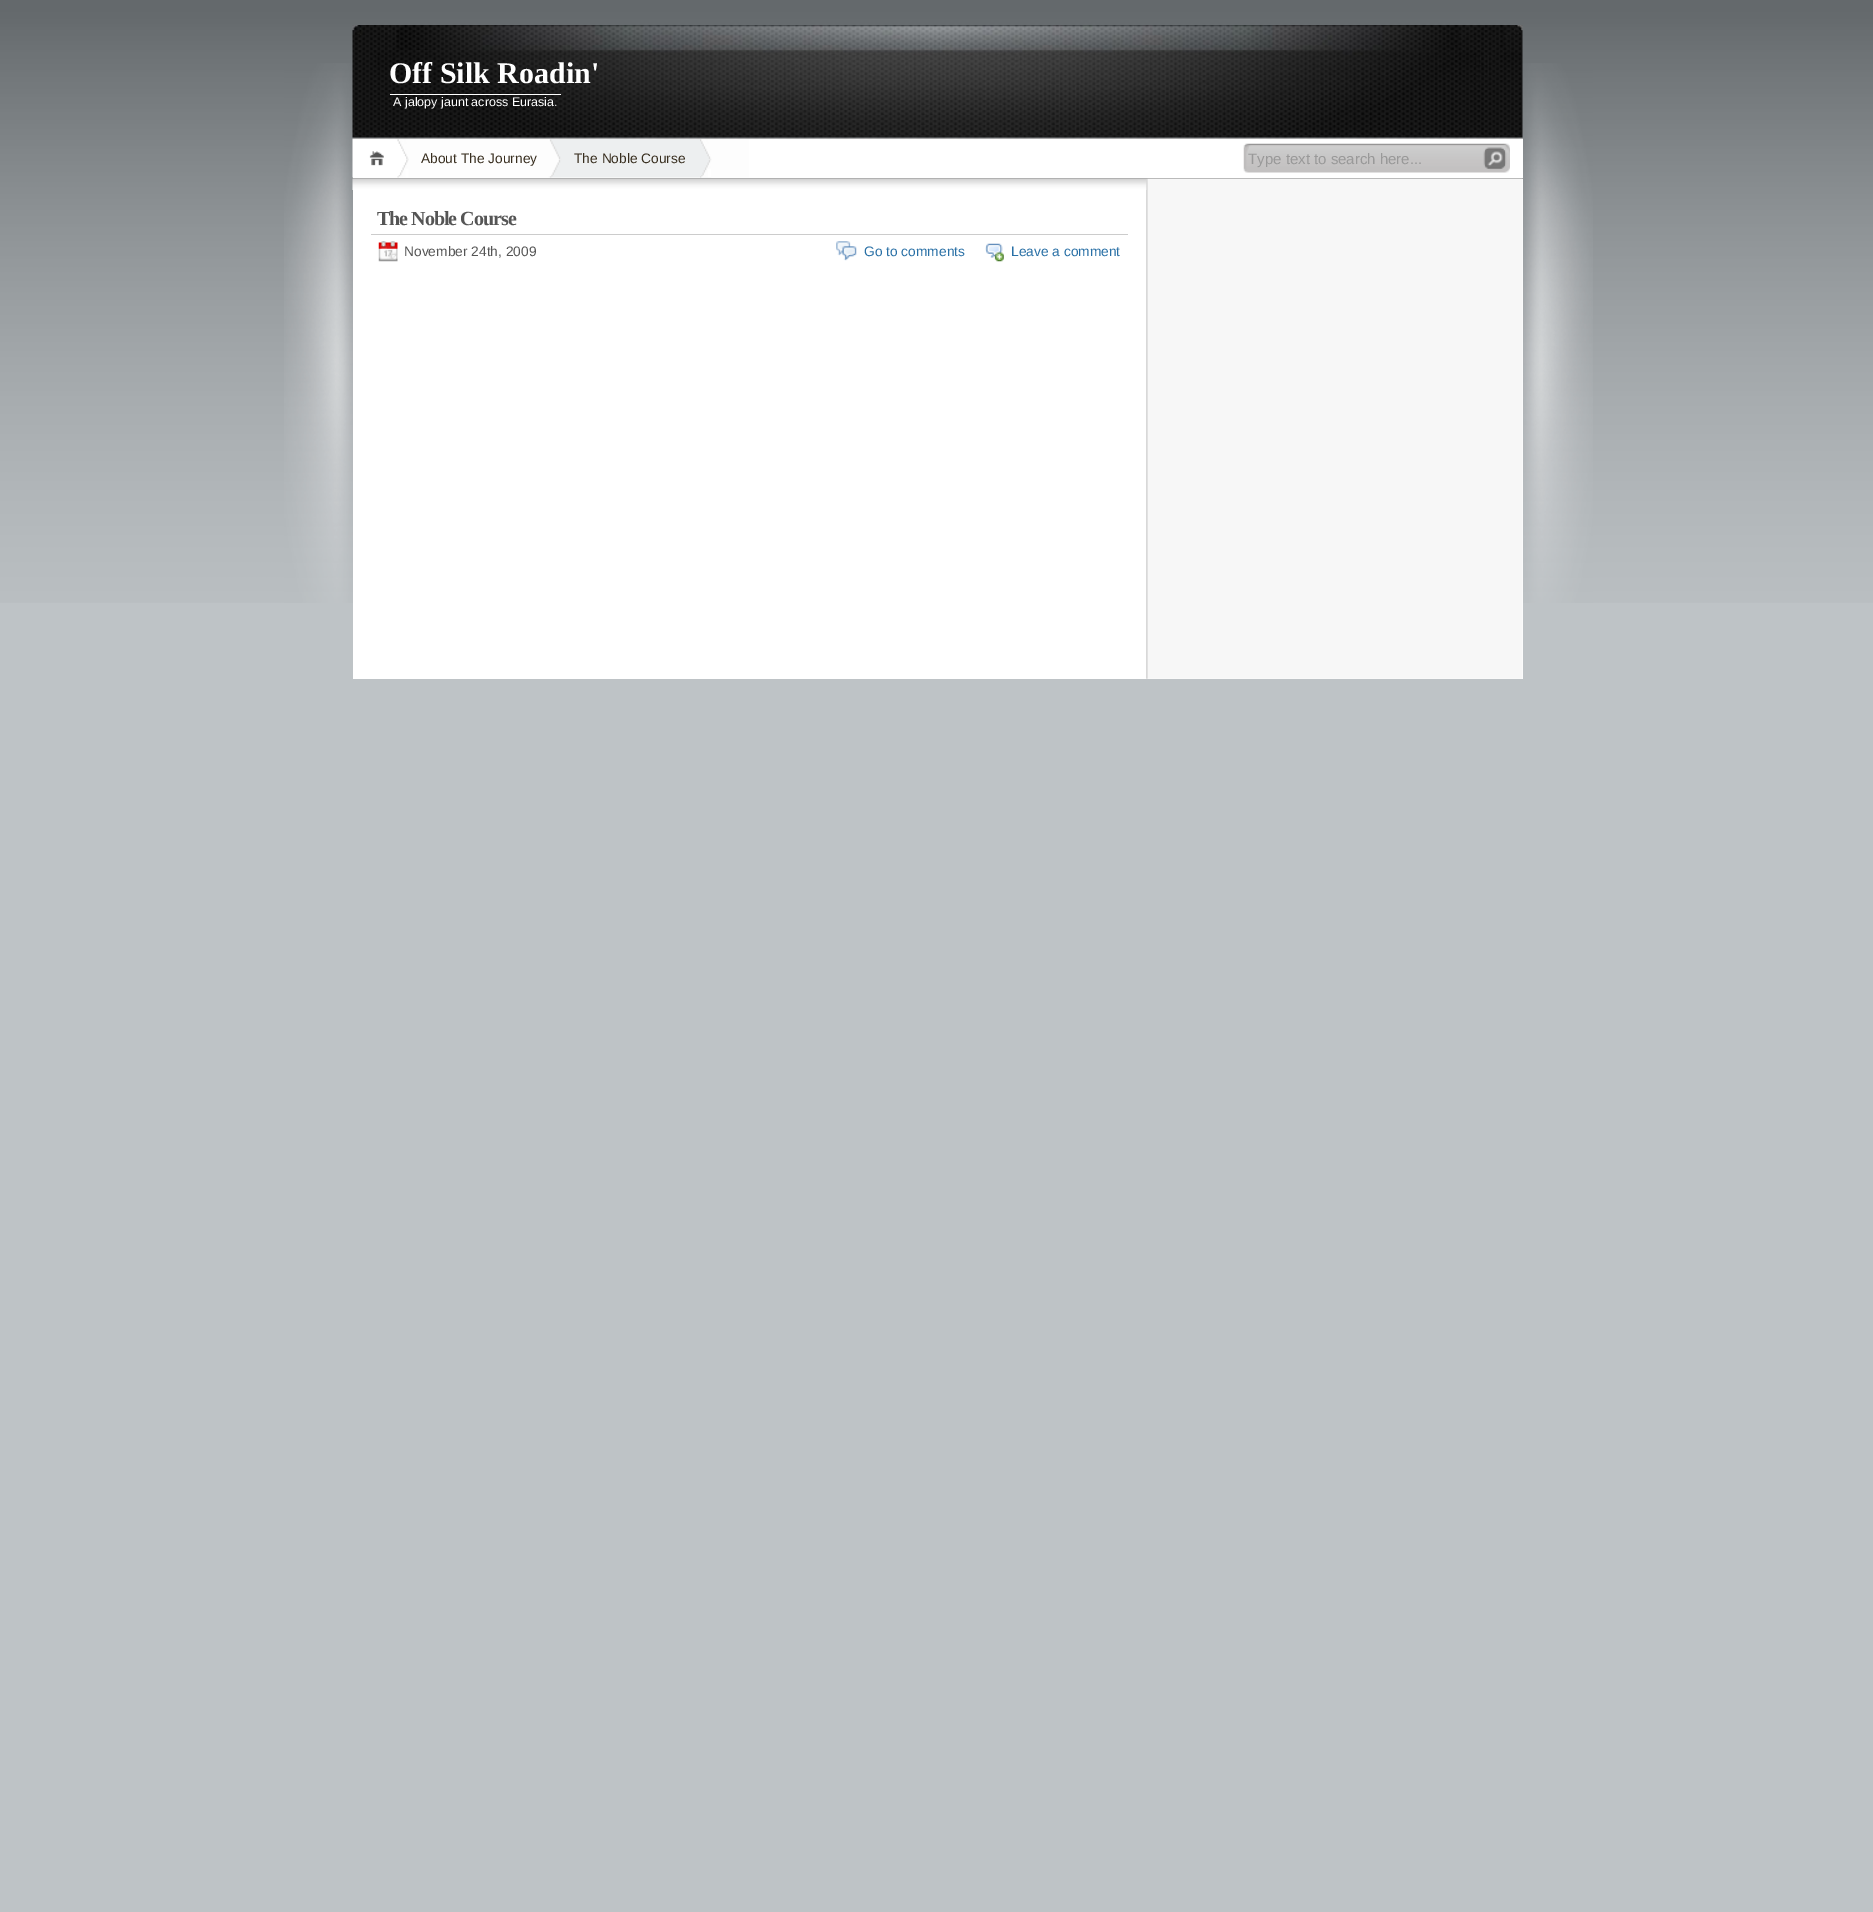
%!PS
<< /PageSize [1873 1912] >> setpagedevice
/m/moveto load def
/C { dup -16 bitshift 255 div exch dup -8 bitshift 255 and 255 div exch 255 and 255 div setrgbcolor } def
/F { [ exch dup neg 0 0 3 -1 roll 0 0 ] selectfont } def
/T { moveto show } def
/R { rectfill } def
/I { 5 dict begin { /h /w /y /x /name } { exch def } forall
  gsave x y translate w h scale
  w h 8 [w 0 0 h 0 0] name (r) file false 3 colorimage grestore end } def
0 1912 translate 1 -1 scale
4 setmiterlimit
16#BEC3C6 C
0 0 1873 1912 R
(1.rgb) 0 0 1873 603 I
(2.rgb) 284 63 1309 540 I
(3.rgb) 352 25 1171 113 I
16#FFFFFF C
353 139 1170 39 R
(4.rgb) 352 138 57 40 I
16#A6A6A6 C
353 138 1170 1 R
/LiberationSerif-Bold 30 F
16#FFFFFF C
(Off Silk Roadin') 389 83 T
390 94 171 1 R
/LiberationSans-Regular 12.5 F
(A jalopy jaunt across Eurasia.) 393 106 T
16#A6A6A6 C
353 178 1170 1 R
(5.rgb) 397 139 165 39 I
/LiberationSans-Regular 13.75 F
16#382E1F C
(About The Journey) 421 163 T
(6.rgb) 548 139 164 39 I
(The Noble Course) 574 163 T
(7.rgb) 700 139 49 39 I
(8.rgb) 1243 143 267 30 I
/LiberationSans-Regular 15 F
16#999999 C
(Type text to search here...) 1248 164 T
16#FFFFFF C
353 179 1170 500 R
(9.rgb) 1146 178 377 501 I
(10.rgb) 352 178 795 12 I
16#CCCCCC C
371 234 757 1 R
/LiberationSerif-Bold 20 F
16#555555 C
377 225 m -1 0 (The Noble Course) ashow
(11.rgb) 378 241 20 21 I
/LiberationSans-Regular 13.75 F
(November 24th, 2009) 404 256 T
(12.rgb) 836 241 21 20 I
16#2970A6 C
(Go to comments) 864 256 T
(13.rgb) 985 243 19 19 I
(Leave a comment) 1011 256 T
showpage
